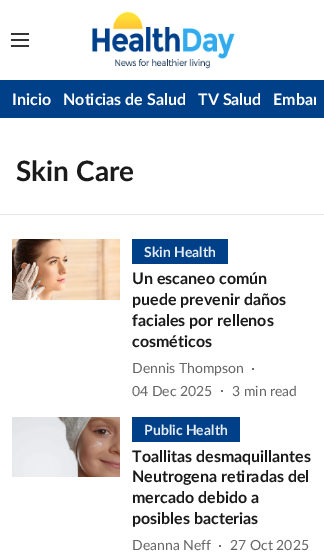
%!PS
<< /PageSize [324 552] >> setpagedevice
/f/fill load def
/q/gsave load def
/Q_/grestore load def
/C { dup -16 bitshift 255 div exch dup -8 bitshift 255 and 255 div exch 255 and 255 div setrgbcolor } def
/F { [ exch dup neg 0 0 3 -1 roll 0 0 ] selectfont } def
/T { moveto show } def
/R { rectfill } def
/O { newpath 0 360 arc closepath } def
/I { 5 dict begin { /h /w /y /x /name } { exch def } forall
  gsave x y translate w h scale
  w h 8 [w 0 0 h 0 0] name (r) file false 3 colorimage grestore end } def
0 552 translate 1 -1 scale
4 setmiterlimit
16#FFFFFF C
0 0 324 552 R
(1.rgb) 11 33 18 14 I
(2.rgb) 92 11 143 58 I
16#004089 C
0 80 324 38 R
/Lato-Bold 16 F
16#FFFFFF C
(Inicio) 12 105 T
(Noticias de Salud) 63 105 T
(TV Salud) 198 105 T
q
0 80 316 38 rectclip
(Embar) 273 105 T
Q_
16#E6E6E6 C
0 214 324 1 R
/Lato-Bold 28 F
16#1A1A1A C
(Skin Care) 16 181 T
(3.rgb) 12 239 108 61 I
16#004089 C
132 239 96 25 R
/Lato-Bold 14 F
16#E6ECF3 C
(Skin Health) 144 257 T
/Lato-Bold 16 F
16#1A1A1A C
(Un escaneo común) 132 284 T
(puede prevenir daños) 132 305 T
(faciales por rellenos) 132 326 T
(cosméticos) 132 347 T
/Lato-Regular 14 F
16#666666 C
(Dennis Thompson) 132 373 T
253 369 1 O f
(04 Dec 2025) 132 396 T
222 391 1 O f
(3 min read) 232 396 T
(4.rgb) 12 417 108 60 I
16#004089 C
132 417 108 25 R
/Lato-Bold 14 F
16#E6ECF3 C
(Public Health) 144 435 T
/Lato-Bold 16 F
16#1A1A1A C
(Toallitas desmaquillantes) 132 462 T
(Neutrogena retiradas del) 132 482 T
(mercado debido a) 132 503 T
(posibles bacterias) 132 524 T
/Lato-Regular 14 F
16#666666 C
(Deanna Neff) 132 550 T
220 546 1 O f
(27 Oct 2025) 230 550 T
showpage
